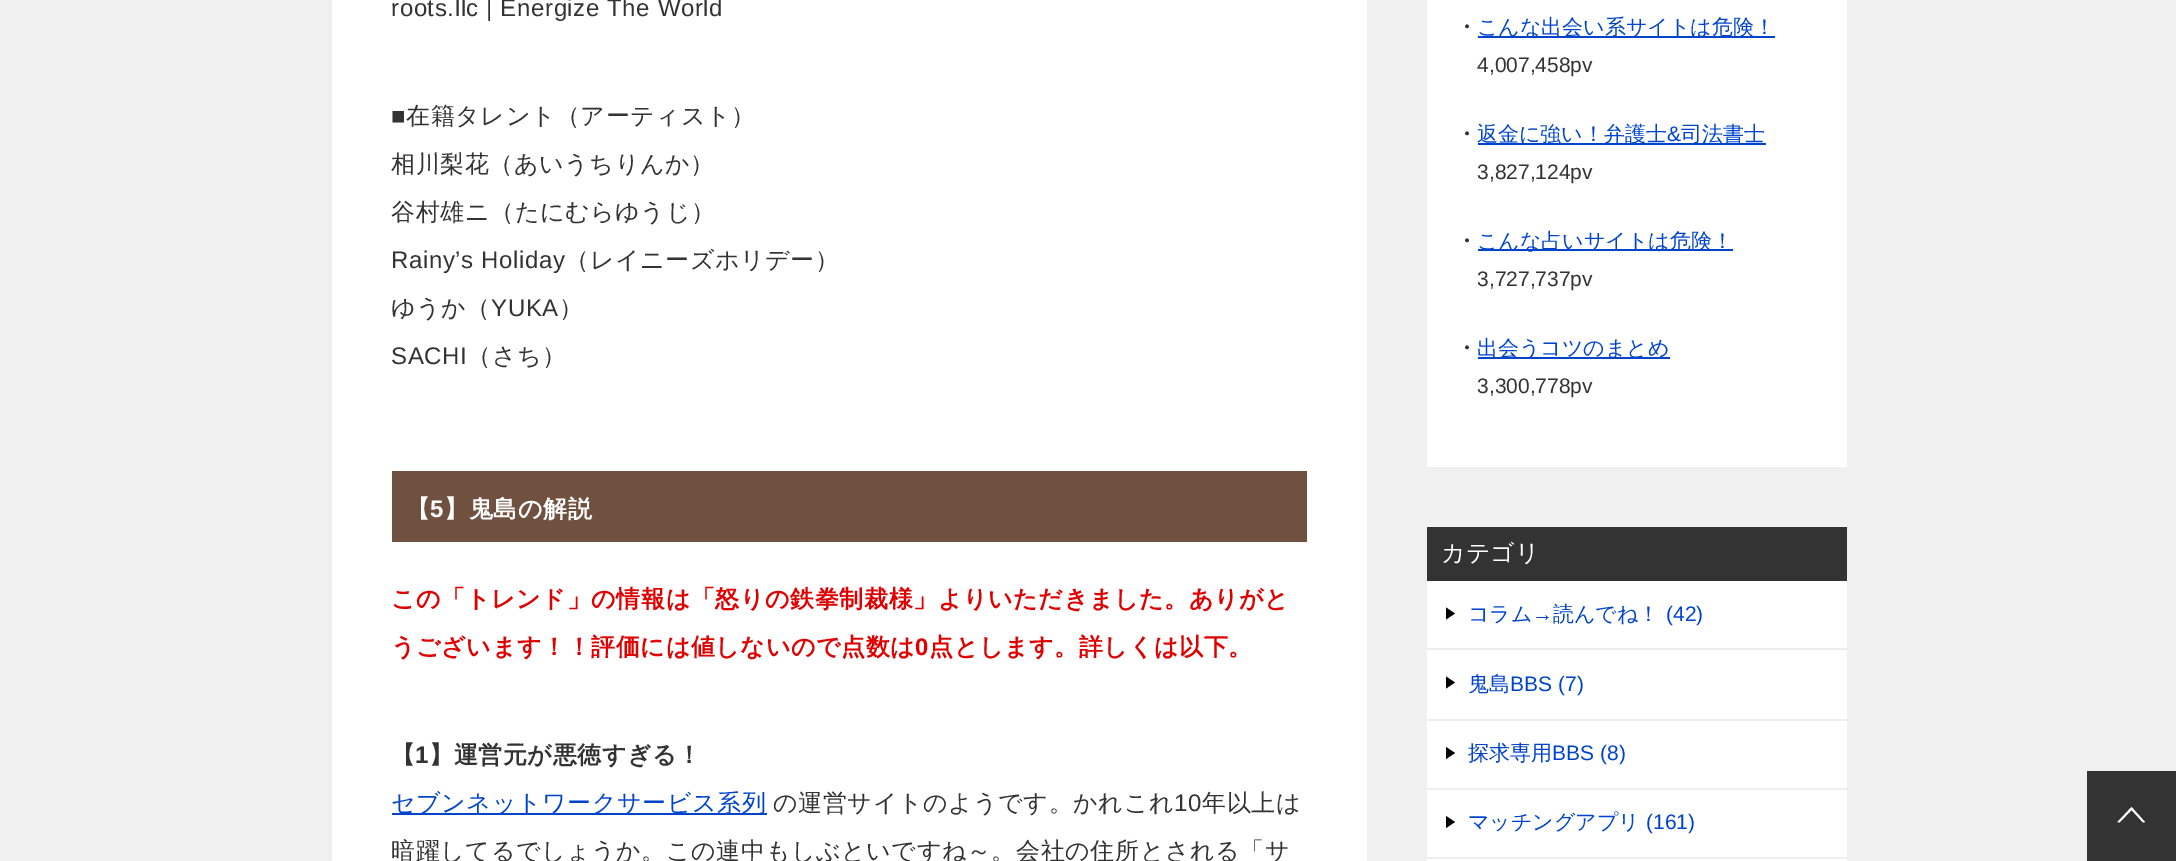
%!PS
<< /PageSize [2176 861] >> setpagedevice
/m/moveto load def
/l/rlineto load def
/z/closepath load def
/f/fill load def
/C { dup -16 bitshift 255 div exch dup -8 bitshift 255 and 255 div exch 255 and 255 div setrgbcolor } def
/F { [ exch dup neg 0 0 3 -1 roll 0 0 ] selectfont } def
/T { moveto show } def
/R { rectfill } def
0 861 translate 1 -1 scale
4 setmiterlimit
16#F0F0F0 C
0 0 2176 861 R
16#FFFFFF C
332 0 1035 861 R
/LiberationSans-Regular 24 F
16#333333 C
391 16 m .6 0 (roots.llc | Energize The World) ashow
391 124 m .6 0 (■) ashow
/WenQuanYiZenHei-Medium 24 F
406 124 m .6 0 (在籍タレント（アーティスト）) ashow
391 172 m .6 0 (相川梨花（あいうちりんか）) ashow
391 220 m .6 0 (谷村雄ニ（たにむらゆうじ）) ashow
/LiberationSans-Regular 24 F
391 268 m .6 0 (Rainy’s Holiday) ashow
/WenQuanYiZenHei-Medium 24 F
565 268 m .6 0 (（レイニーズホリデー）) ashow
391 316 m .6 0 (ゆうか（) ashow
/LiberationSans-Regular 24 F
491 316 m .6 0 (YUKA) ashow
/WenQuanYiZenHei-Medium 24 F
559 316 m .6 0 (）) ashow
/LiberationSans-Regular 24 F
391 364 m .6 0 (SACHI) ashow
/WenQuanYiZenHei-Medium 24 F
467 364 m .6 0 (（さち）) ashow
16#70503E C
392 471 915 71 R
/WenQuanYiZenHei-Bold 24 F
16#FFFFFF C
406 517 m .6 0 (【) ashow
/LiberationSans-Bold 24 F
430 517 m .6 0 (5) ashow
/WenQuanYiZenHei-Bold 24 F
444 517 m .6 0 (】鬼島の解説) ashow
16#E00000 C
391 607 m .6 0 (この「トレンド」の情報は「怒りの鉄拳制裁様」よりいただきました。ありがと) ashow
391 655 m .6 0 (うございます！！評価には値しないので点数は) ashow
/LiberationSans-Bold 24 F
915 655 m .6 0 (0) ashow
/WenQuanYiZenHei-Bold 24 F
929 655 m .6 0 (点とします。詳しくは以下。) ashow
16#333333 C
391 763 m .6 0 (【) ashow
/LiberationSans-Bold 24 F
415 763 m .6 0 (1) ashow
/WenQuanYiZenHei-Bold 24 F
429 763 m .6 0 (】運営元が悪徳すぎる！) ashow
16#0044CC C
392 813 375 2 R
/WenQuanYiZenHei-Medium 24 F
391 811 m .6 0 (セブンネットワークサービス系列) ashow
16#333333 C
773 811 m .6 0 (の運営サイトのようです。かれこれ) ashow
/LiberationSans-Regular 24 F
1174 811 m .6 0 (10) ashow
/WenQuanYiZenHei-Medium 24 F
1202 811 m .6 0 (年以上は) ashow
391 859 m .6 0 (暗躍してるでしょうか。この連中もしぶといですね～。会社の住所とされる「サ) ashow
16#FFFFFF C
1427 0 420 467 R
/WenQuanYiZenHei-Bold 21 F
16#333333 C
(・) 1456 34 T
16#0044CC C
1478 36 297 2 R
/WenQuanYiZenHei-Medium 21 F
(こんな出会い系サイトは危険！) 1477 34 T
/LiberationSans-Regular 21 F
16#333333 C
(4,007,458pv) 1477 72 T
/WenQuanYiZenHei-Bold 21 F
(・) 1456 141 T
16#0044CC C
1478 143 288 2 R
/WenQuanYiZenHei-Medium 21 F
(返金に強い！弁護士) 1477 141 T
/LiberationSans-Regular 21 F
(&) 1667 141 T
/WenQuanYiZenHei-Medium 21 F
(司法書士) 1681 141 T
/LiberationSans-Regular 21 F
16#333333 C
(3,827,124pv) 1477 179 T
/WenQuanYiZenHei-Bold 21 F
(・) 1456 248 T
16#0044CC C
1478 249 255 2 R
/WenQuanYiZenHei-Medium 21 F
(こんな占いサイトは危険！) 1477 248 T
/LiberationSans-Regular 21 F
16#333333 C
(3,727,737pv) 1477 286 T
/WenQuanYiZenHei-Bold 21 F
(・) 1456 355 T
16#0044CC C
1478 357 192 2 R
/WenQuanYiZenHei-Medium 21 F
(出会うコツのまとめ) 1477 355 T
/LiberationSans-Regular 21 F
16#333333 C
(3,300,778pv) 1477 393 T
16#FFFFFF C
1427 581 420 280 R
16#333333 C
1427 527 420 54 R
/WenQuanYiZenHei-Medium 24 F
16#FFFFFF C
(カテゴリ) 1441 561 T
16#EEEEEE C
1427 648 420 2 R
16#000000 C
1446 619.5 m 0 -12 l 9 6 l z f
/WenQuanYiZenHei-Medium 21 F
16#0044CC C
(コラム) 1468 621 T
/LiberationSans-Regular 21 F
(→) 1532 621 T
/WenQuanYiZenHei-Medium 21 F
(読んでね！) 1553 621 T
/LiberationSans-Regular 21 F
(\(42\)) 1666 621 T
16#EEEEEE C
1427 719 420 2 R
16#000000 C
1446 688.5 m 0 -12 l 9 6 l z f
/WenQuanYiZenHei-Medium 21 F
16#0044CC C
(鬼島) 1468 691 T
/LiberationSans-Regular 21 F
(BBS \(7\)) 1510 691 T
16#EEEEEE C
1427 788 420 2 R
16#000000 C
1446 759 m 0 -12 l 9 6 l z f
/WenQuanYiZenHei-Medium 21 F
16#0044CC C
(探求専用) 1468 760 T
/LiberationSans-Regular 21 F
(BBS \(8\)) 1552 760 T
16#EEEEEE C
1427 857 420 2 R
16#000000 C
1446 828 m 0 -12 l 9 6 l z f
/WenQuanYiZenHei-Medium 21 F
16#0044CC C
(マッチングアプリ) 1468 829 T
/LiberationSans-Regular 21 F
(\(161\)) 1646 829 T
16#333333 C
2087 771 89 90 R
16#FFFFFF C
2131.5 807 m 13.5 15 l -2 .5 l -11.5 -12.5 l -12 12.5 l -2 -.5 l z f
showpage
